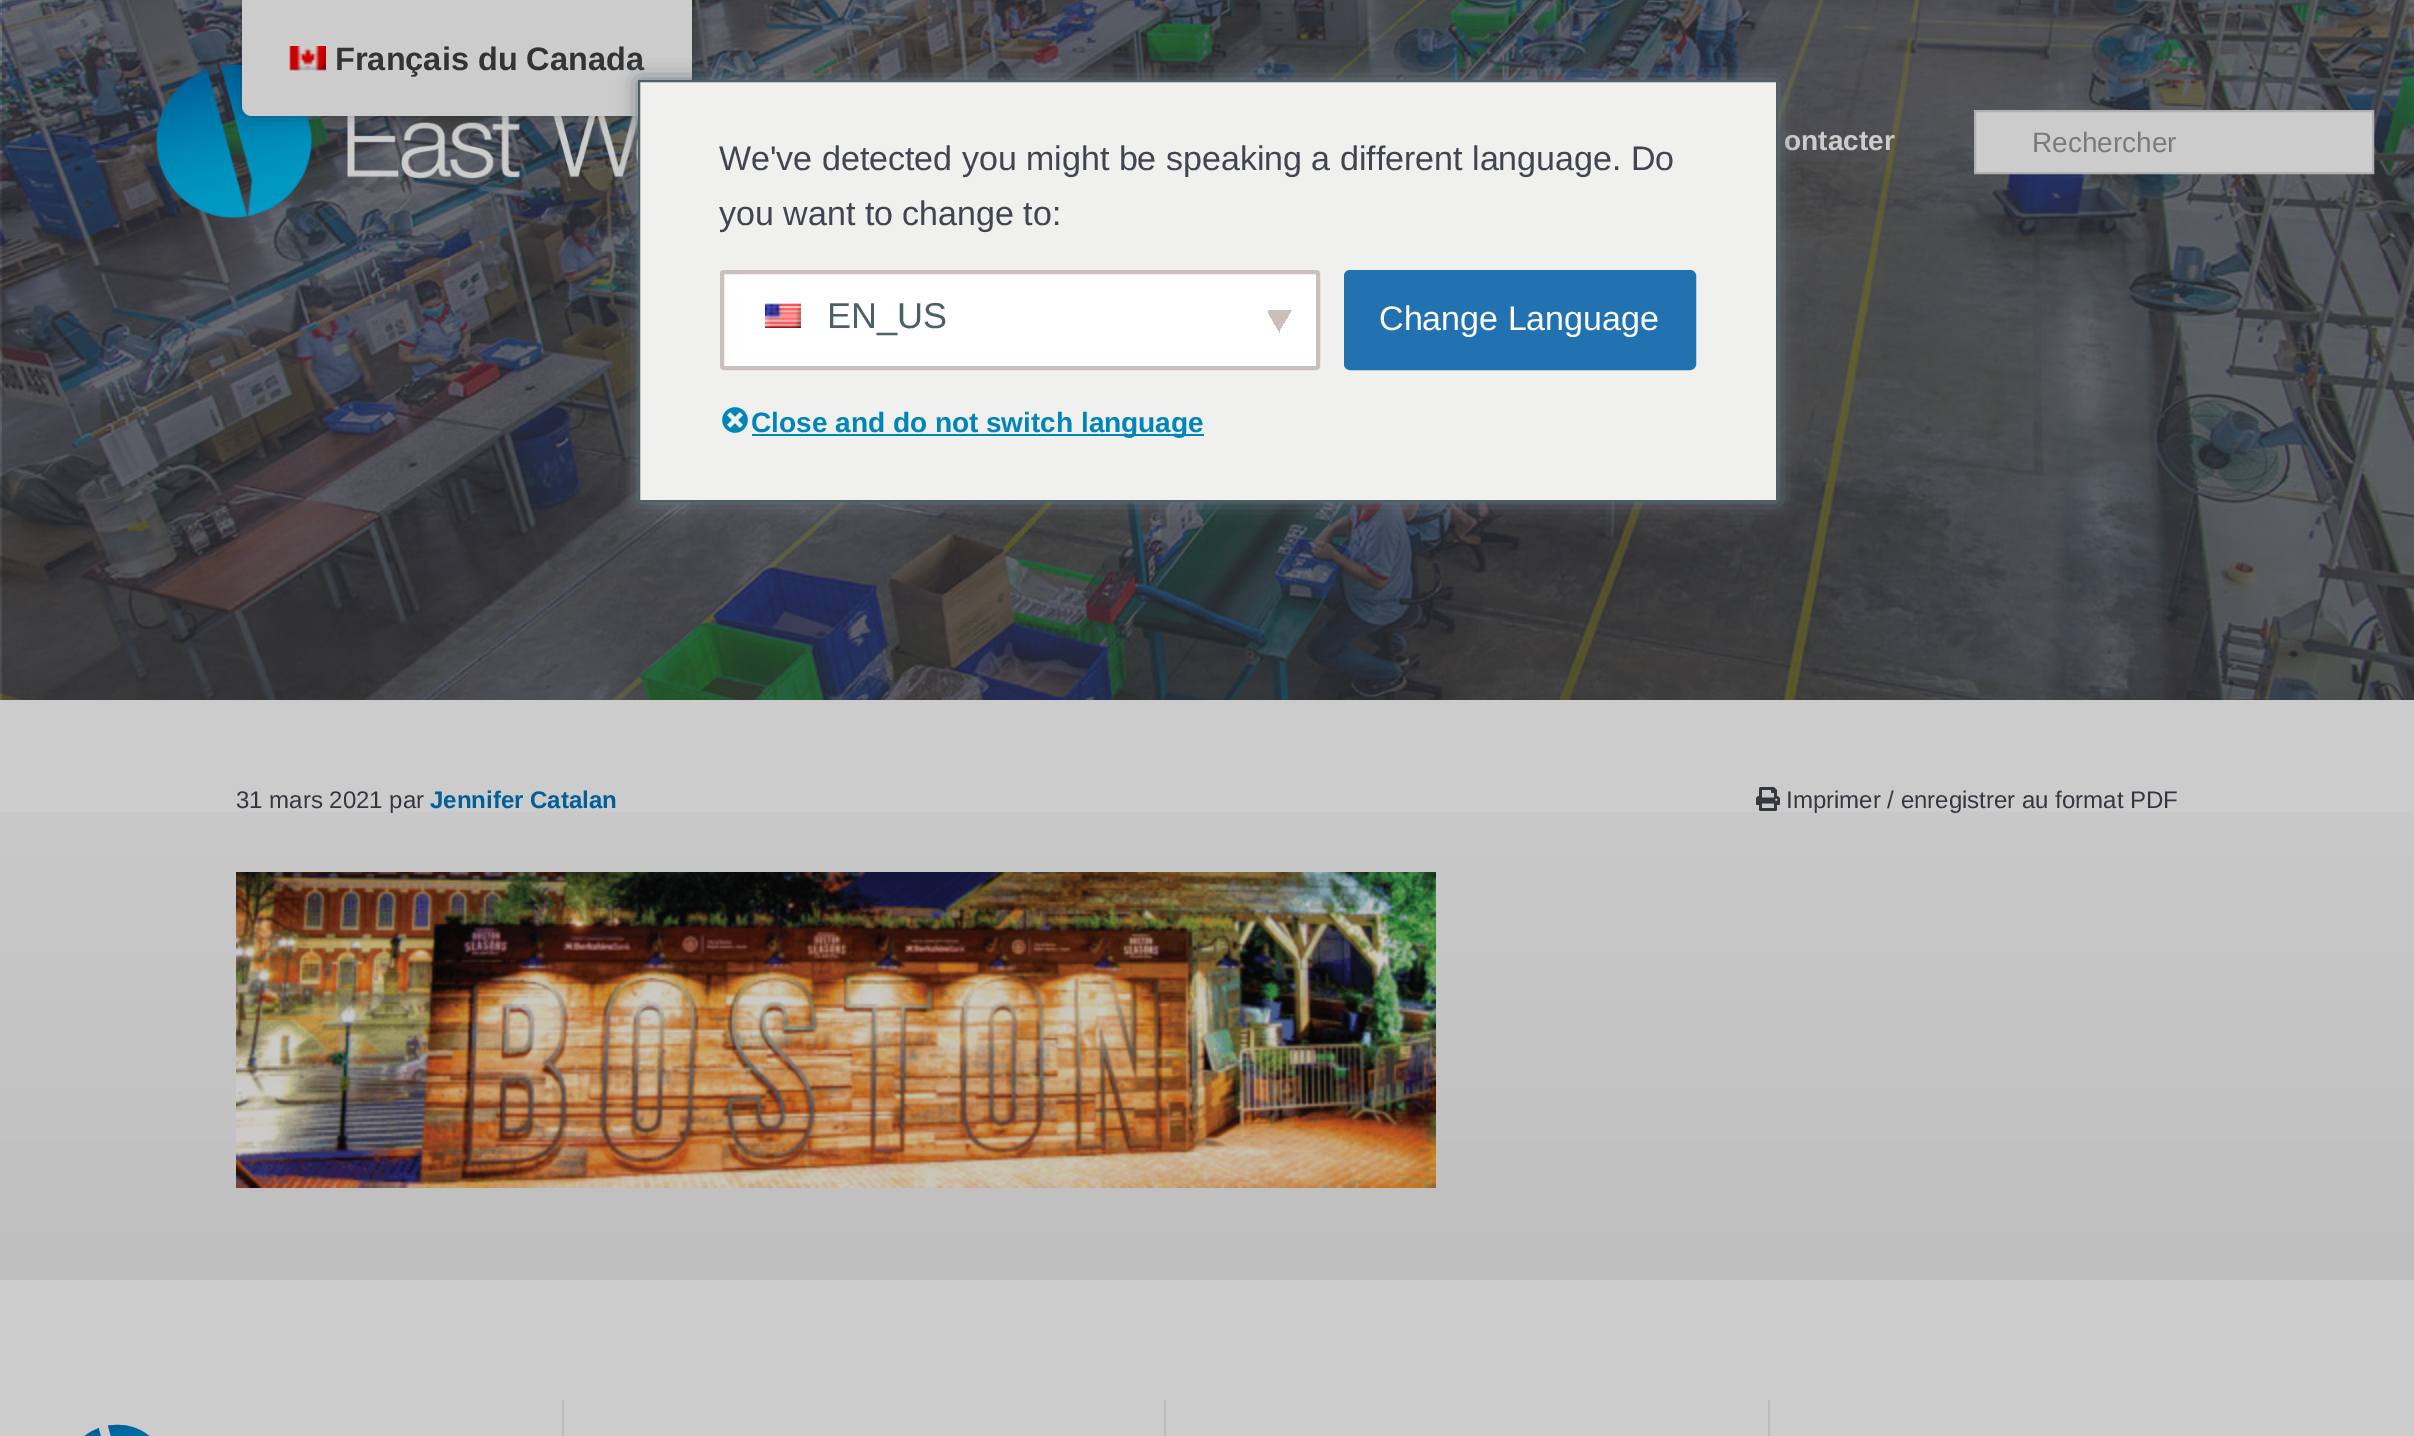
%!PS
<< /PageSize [2414 1436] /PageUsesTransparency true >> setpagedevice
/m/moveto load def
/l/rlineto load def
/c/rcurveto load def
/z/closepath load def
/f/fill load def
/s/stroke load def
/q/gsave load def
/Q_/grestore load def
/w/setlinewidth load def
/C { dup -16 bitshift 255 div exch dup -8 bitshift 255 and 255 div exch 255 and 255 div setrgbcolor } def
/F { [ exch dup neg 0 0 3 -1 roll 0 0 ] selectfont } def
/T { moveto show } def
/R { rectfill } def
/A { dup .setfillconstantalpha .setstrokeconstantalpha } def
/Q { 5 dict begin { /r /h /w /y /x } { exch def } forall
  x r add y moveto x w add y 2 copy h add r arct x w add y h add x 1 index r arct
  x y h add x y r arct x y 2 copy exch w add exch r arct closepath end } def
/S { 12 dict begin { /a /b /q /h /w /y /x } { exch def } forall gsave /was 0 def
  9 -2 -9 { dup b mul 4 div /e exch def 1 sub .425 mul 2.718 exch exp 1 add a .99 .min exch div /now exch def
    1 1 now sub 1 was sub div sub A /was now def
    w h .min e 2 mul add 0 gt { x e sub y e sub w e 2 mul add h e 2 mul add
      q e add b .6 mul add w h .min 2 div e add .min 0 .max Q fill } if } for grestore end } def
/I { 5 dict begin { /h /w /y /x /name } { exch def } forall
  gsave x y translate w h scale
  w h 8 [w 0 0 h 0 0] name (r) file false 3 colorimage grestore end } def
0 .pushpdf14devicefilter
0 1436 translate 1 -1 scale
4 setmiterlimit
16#CCCCCC C
0 0 2414 1436 R
(2.rgb) 0 0 2414 700 I
(3.rgb) 156 64 482 154 I
16#000000 C
242 0 450 116 10 8 .25 S
16#CCCCCC C
242 0 m 450 0 l 0 106 l 0 5.5 -4.5 10 -10 10 c -430 0 l -5.5 0 -10 -4.5 -10 -10 c z f
(1.rgb) 289 46 37 25 I
/LiberationSans-Bold 32.5 F
16#333333 C
(Français du Canada) 335 70 T
/LiberationSans-Bold 28 F
16#CCCCCC C
(ontacter) 1784 150 T
1975 111 m 398 0 l 0 62 l -398 0 l z q f Q_
16#B0B0B0 C
2 w
s
/LiberationSans-Regular 28 F
16#7A7A7A C
(Rechercher) 2032 152 T
q 0 812 m 2414 0 l 0 468 l -2414 0 l z clip newpath
<< /ShadingType 2 /ColorSpace /DeviceRGB /Coords [1207 700 1207 1280] /Extend [true true] /Function << /FunctionType 2 /Domain [0 1] /C0 [.8 .8 .8] /C1 [.749 .749 .749] /N 1 >> >> shfill Q_
/LiberationSans-Regular 24 F
16#35373F C
(31 mars 2021 par) 236 808 T
/LiberationSans-Bold 24 F
16#005E98 C
(Jennifer Catalan) 430 808 T
(4.rgb) 1756 787 24 24 I
/LiberationSans-Regular 24 F
16#35373F C
(Imprimer / enregistrer au format PDF) 1786 808 T
(5.rgb) 236 872 1200 316 I
16#BBBBBB C
562 1400 2 36 R
(6.rgb) 84 1424 66 12 I
1164 1400 2 36 R
1768 1400 2 36 R
16#6C7781 C
638 80 1140 422 0 10 1 S
16#F0F0EE C
639 81 m 1138 0 l 0 420 l -1138 0 l z q f Q_
16#4C6066 C
s
/LiberationSans-Regular 34 F
16#42454F C
(We've detected you might be speaking a different language. Do) 719 170 T
(you want to change to:) 719 225 T
16#FFFFFF C
720 270 600 100 4 Q f
q 1280 310 m 12 0 l 0 19 l -12 0 l z clip newpath
<< /ShadingType 2 /ColorSpace /DeviceRGB /Coords [1275 316 1295 328] /Extend [true true] /Function << /FunctionType 3 /Domain [0 1] /Functions [<< /FunctionType 2 /Domain [0 1] /C0 [.788 .753 .733] /C1 [.788 .753 .733] /N 1 >> << /FunctionType 2 /Domain [0 1] /C0 [1 1 1] /C1 [1 1 1] /N 1 >>] /Bounds [.5] /Encode [0 1 0 1] >> >> shfill Q_
q 1268 310 m 12 0 l 0 23 l -12 0 l z clip newpath
<< /ShadingType 2 /ColorSpace /DeviceRGB /Coords [1263 328 1283 316] /Extend [true true] /Function << /FunctionType 3 /Domain [0 1] /Functions [<< /FunctionType 2 /Domain [0 1] /C0 [1 1 1] /C1 [1 1 1] /N 1 >> << /FunctionType 2 /Domain [0 1] /C0 [.788 .753 .733] /C1 [.788 .753 .733] /N 1 >>] /Bounds [.5] /Encode [0 1 0 1] >> >> shfill Q_
16#C9C0BB C
4 w
722 272 596 96 2 Q s
(7.rgb) 765 303 36 25 I
/LiberationSans-Regular 36 F
16#4C6066 C
(EN_US) 827 328 T
16#2271B1 C
1345 271 350 98 5 Q q f Q_
2 w
s
/LiberationSans-Regular 34 F
16#FFFFFF C
(Change Language) 1379 330 T
(8.rgb) 722 407 26 26 I
16#0085BA C
752 434 452 2 R
/LiberationSans-Bold 28 F
(Close and do not switch language) 751 432 T
.poppdf14devicefilter showpage
